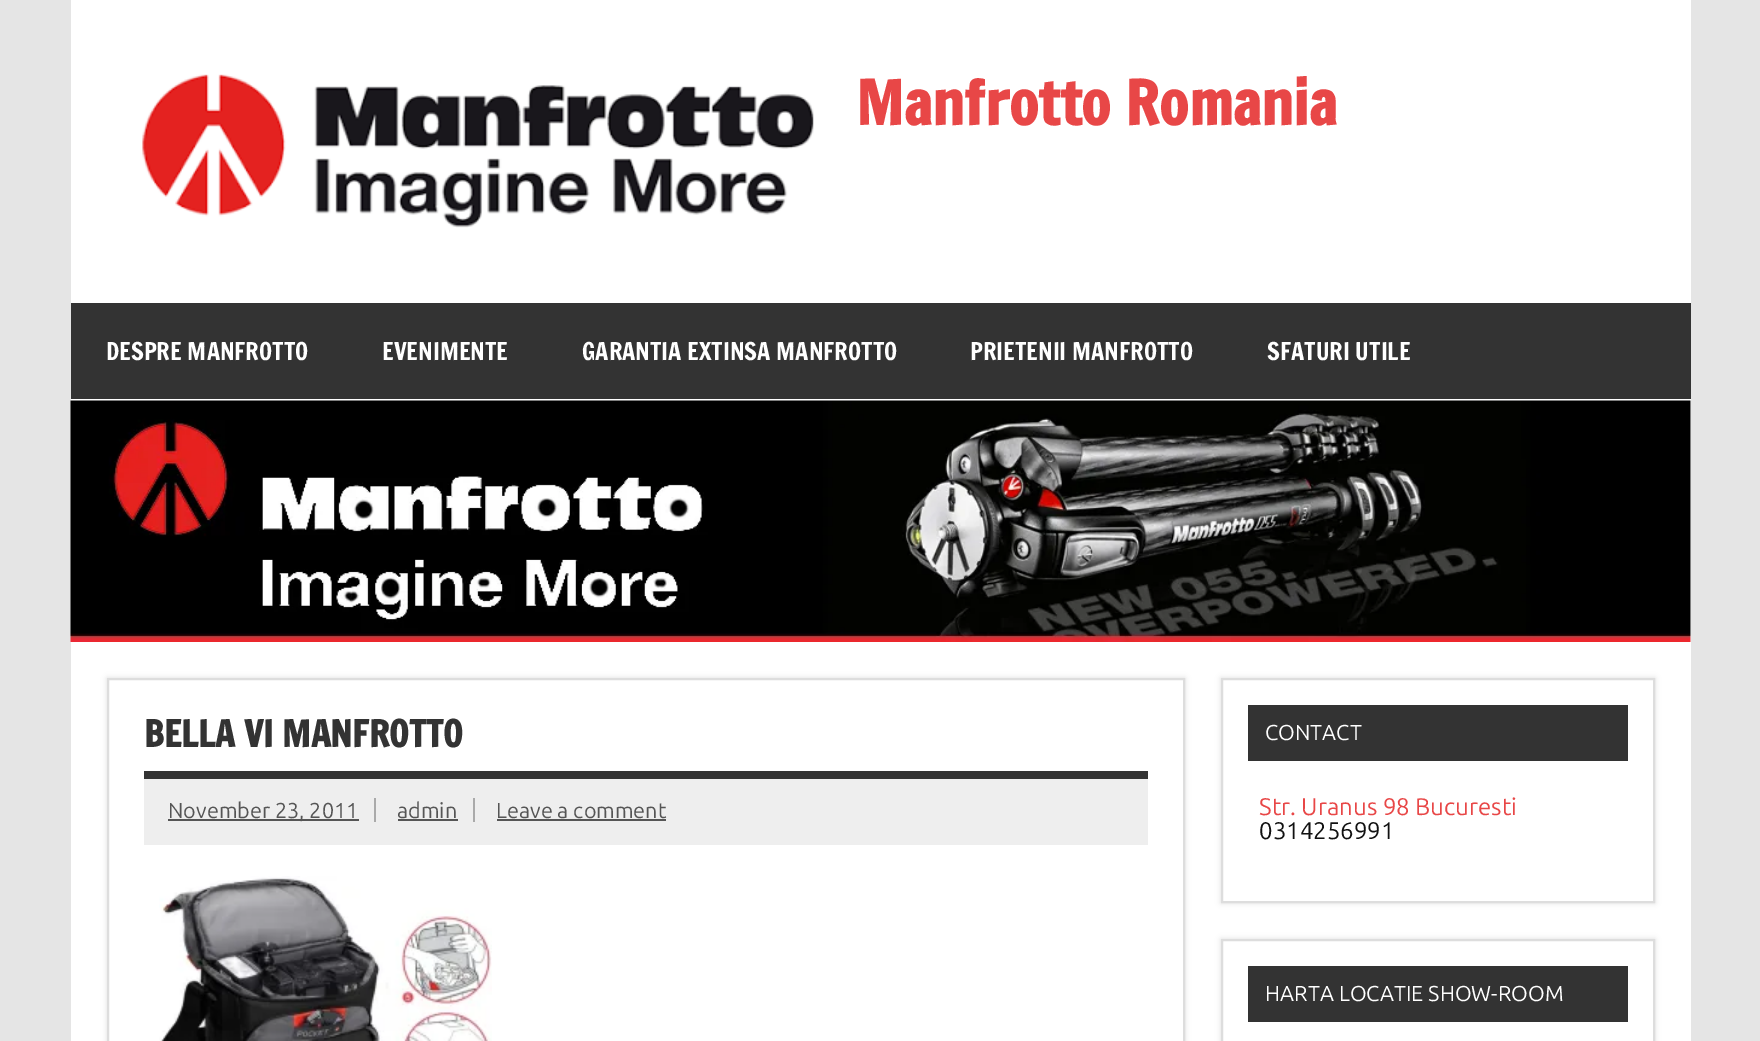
%!PS
<< /PageSize [1760 1041] /PageUsesTransparency true >> setpagedevice
/m/moveto load def
/l/rlineto load def
/z/closepath load def
/f/fill load def
/s/stroke load def
/q/gsave load def
/Q_/grestore load def
/w/setlinewidth load def
/C { dup -16 bitshift 255 div exch dup -8 bitshift 255 and 255 div exch 255 and 255 div setrgbcolor } def
/F { [ exch dup neg 0 0 3 -1 roll 0 0 ] selectfont } def
/T { moveto show } def
/R { rectfill } def
/A { dup .setfillconstantalpha .setstrokeconstantalpha } def
/Q { 5 dict begin { /r /h /w /y /x } { exch def } forall
  x r add y moveto x w add y 2 copy h add r arct x w add y h add x 1 index r arct
  x y h add x y r arct x y 2 copy exch w add exch r arct closepath end } def
/S { 12 dict begin { /a /b /q /h /w /y /x } { exch def } forall gsave /was 0 def
  9 -2 -9 { dup b mul 4 div /e exch def 1 sub .425 mul 2.718 exch exp 1 add a .99 .min exch div /now exch def
    1 1 now sub 1 was sub div sub A /was now def
    w h .min e 2 mul add 0 gt { x e sub y e sub w e 2 mul add h e 2 mul add
      q e add b .6 mul add w h .min 2 div e add .min 0 .max Q fill } if } for grestore end } def
/I { 5 dict begin { /h /w /y /x /name } { exch def } forall
  gsave x y translate w h scale
  w h 8 [w 0 0 h 0 0] name (r) file false 3 colorimage grestore end } def
0 .pushpdf14devicefilter
0 1041 translate 1 -1 scale
4 setmiterlimit
16#E5E5E5 C
0 0 1760 1041 R
16#FFFFFF C
71 0 1620 1041 R
(1.rgb) 142 74 672 154 I
/FrancoisOne-Bold 60 F
16#E84747 C
(Manfrotto Romania) 856 125 T
16#333333 C
71 303 1620 96 R
/FrancoisOne-Regular 24 F
16#FFFFFF C
(DESPRE MANFROTTO) 106 360 T
(EVENIMENTE) 382 360 T
(GARANTIA EXTINSA MANFROTTO) 582 360 T
(PRIETENII MANFROTTO) 970 360 T
(SFATURI UTILE) 1267 360 T
(2.rgb) 70 400 1621 242 I
q
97 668 m 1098 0 l 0 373 l -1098 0 l z 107 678 m 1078 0 l 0 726 l -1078 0 l z eoclip newpath
16#DDDDDD C
107 678 1078 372 0 3 1 S
Q_
16#DDDDDD C
2 w
108 679 1076 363 rectstroke
16#333333 C
144 771 1004 8 R
/FrancoisOne-Bold 36 F
(BELLA VI MANFROTTO) 144 747 T
16#EEEEEE C
144 779 1004 66 R
16#555555 C
168 819 191 2 R
/Ubuntu-Regular 21.6 F
(November 23, 2011) 168 818 T
16#AAAAAA C
374 798 2 24 R
16#555555 C
(admin) 397 818 T
16#AAAAAA C
473 798 2 24 R
16#555555 C
398 819 60 2 R
(Leave a comment) 496 818 T
497 819 169 2 R
(3.rgb) 159 876 333 165 I
16#DDDDDD C
1221 678 434 225 0 3 1 S
16#FFFFFF C
1222 679 m 432 0 l 0 223 l -432 0 l z q f Q_
16#DDDDDD C
s
16#333333 C
1248 705 380 56 R
16#FFFFFF C
(CONTACT) 1265 740 T
/Ubuntu-Regular 24 F
16#E84747 C
(Str. Uranus 98 Bucuresti) 1259 815 T
16#111111 C
(0314256991) 1259 839 T
16#DDDDDD C
1221 939 434 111 0 3 1 S
16#FFFFFF C
1222 940 m 432 0 l 0 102 l -432 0 l z q f Q_
16#DDDDDD C
s
16#333333 C
1248 966 380 56 R
/Ubuntu-Regular 21.6 F
16#FFFFFF C
(HARTA LOCATIE SHOW-ROOM) 1265 1001 T
.poppdf14devicefilter showpage
